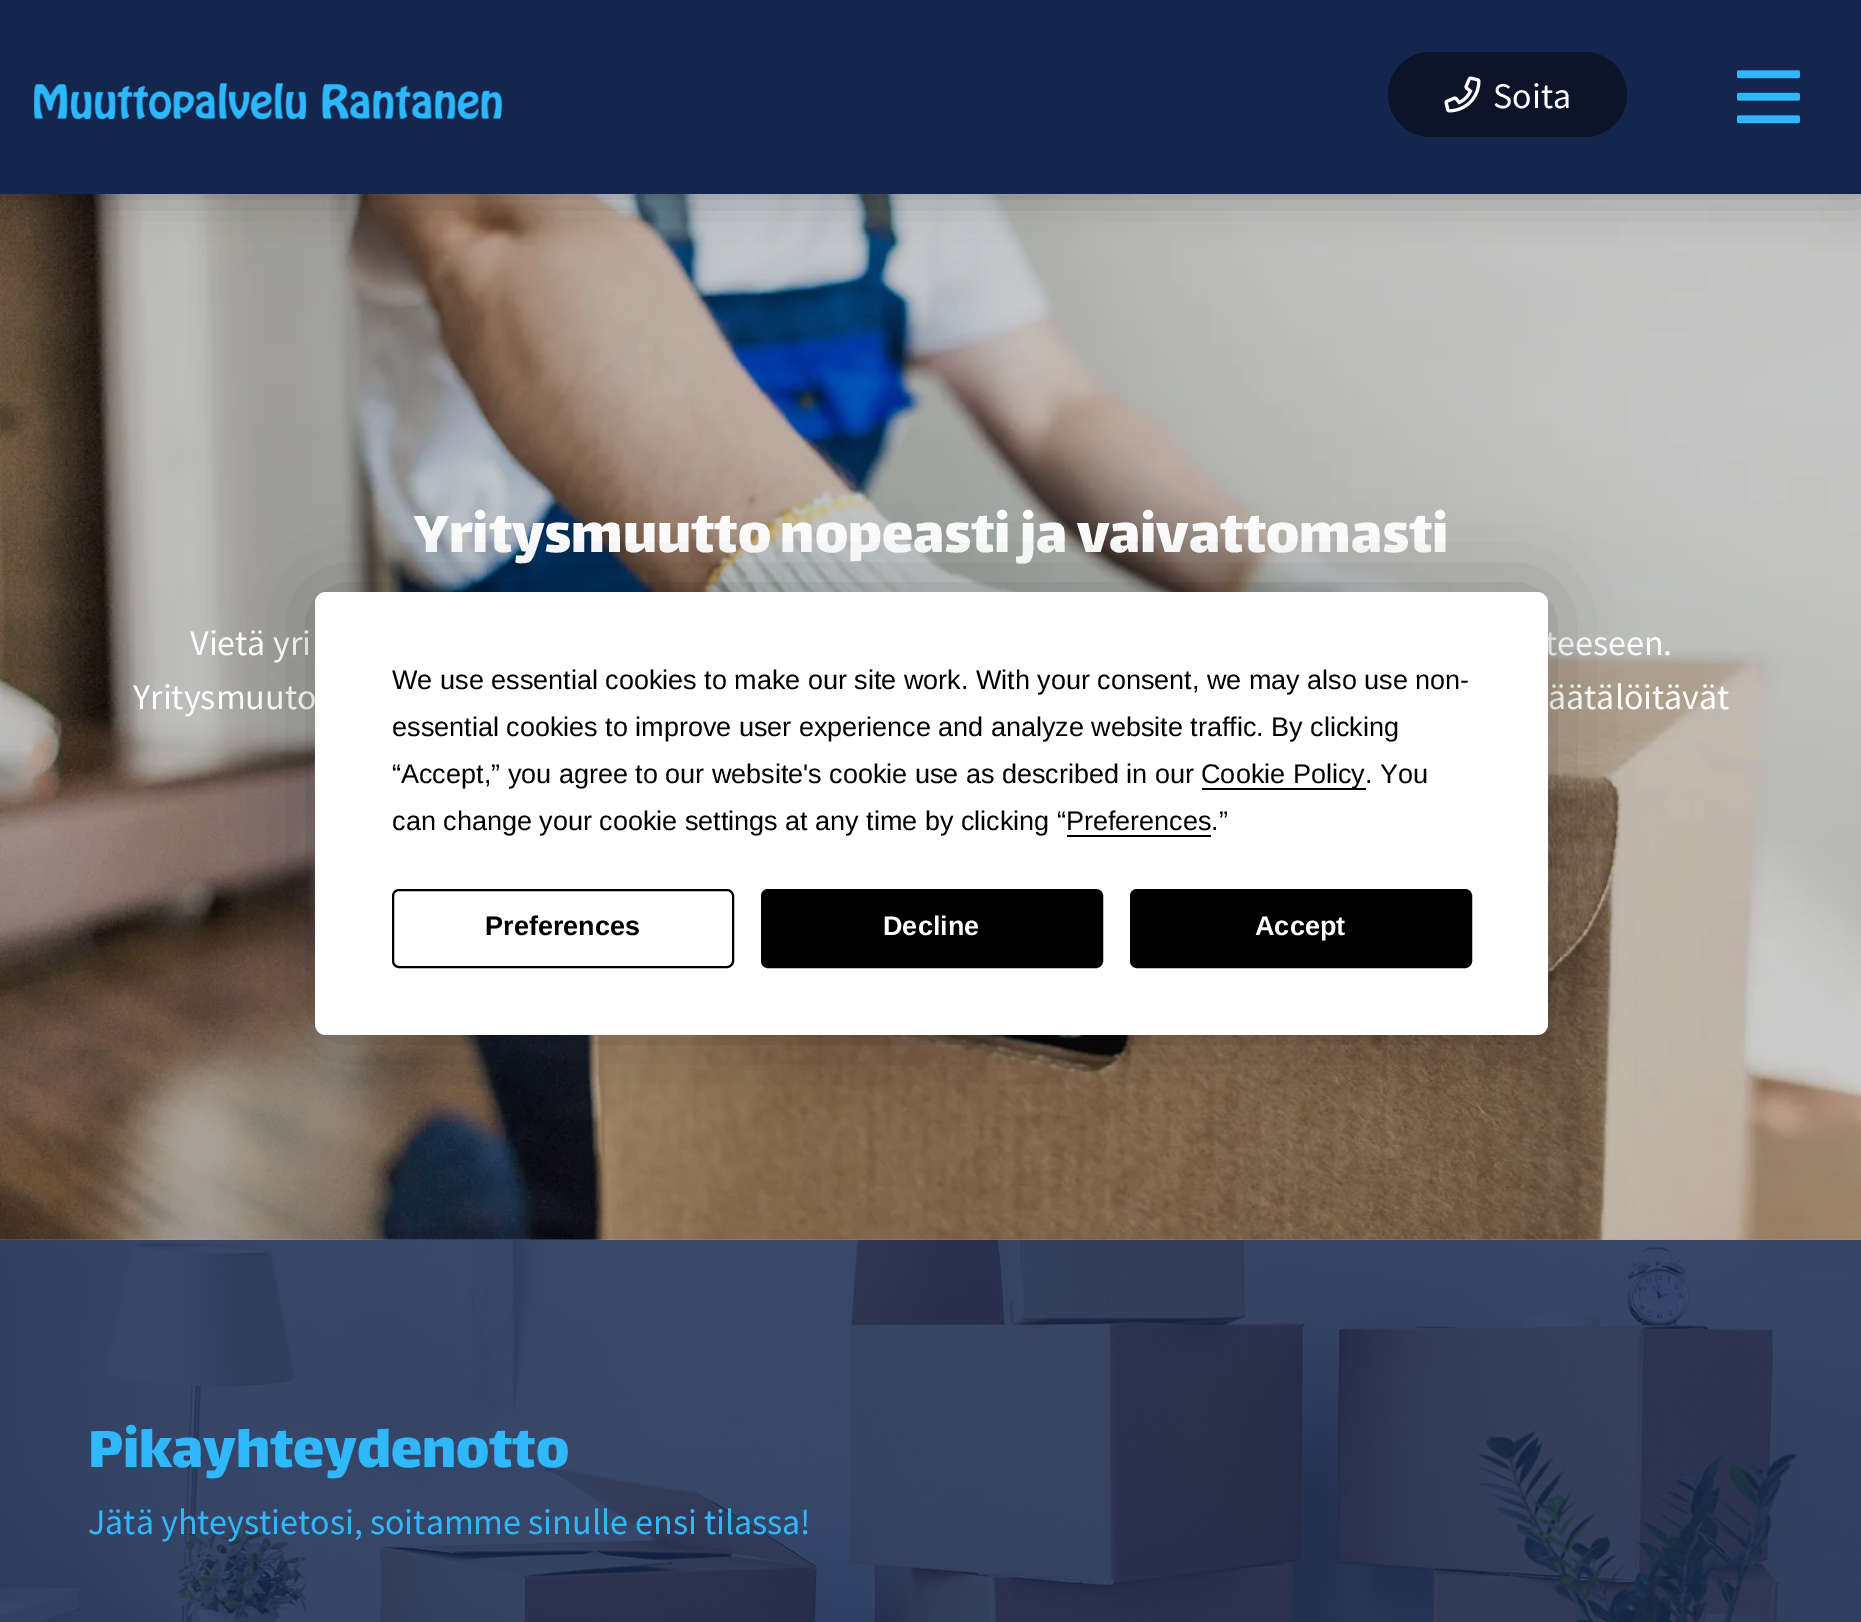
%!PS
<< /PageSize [1861 1622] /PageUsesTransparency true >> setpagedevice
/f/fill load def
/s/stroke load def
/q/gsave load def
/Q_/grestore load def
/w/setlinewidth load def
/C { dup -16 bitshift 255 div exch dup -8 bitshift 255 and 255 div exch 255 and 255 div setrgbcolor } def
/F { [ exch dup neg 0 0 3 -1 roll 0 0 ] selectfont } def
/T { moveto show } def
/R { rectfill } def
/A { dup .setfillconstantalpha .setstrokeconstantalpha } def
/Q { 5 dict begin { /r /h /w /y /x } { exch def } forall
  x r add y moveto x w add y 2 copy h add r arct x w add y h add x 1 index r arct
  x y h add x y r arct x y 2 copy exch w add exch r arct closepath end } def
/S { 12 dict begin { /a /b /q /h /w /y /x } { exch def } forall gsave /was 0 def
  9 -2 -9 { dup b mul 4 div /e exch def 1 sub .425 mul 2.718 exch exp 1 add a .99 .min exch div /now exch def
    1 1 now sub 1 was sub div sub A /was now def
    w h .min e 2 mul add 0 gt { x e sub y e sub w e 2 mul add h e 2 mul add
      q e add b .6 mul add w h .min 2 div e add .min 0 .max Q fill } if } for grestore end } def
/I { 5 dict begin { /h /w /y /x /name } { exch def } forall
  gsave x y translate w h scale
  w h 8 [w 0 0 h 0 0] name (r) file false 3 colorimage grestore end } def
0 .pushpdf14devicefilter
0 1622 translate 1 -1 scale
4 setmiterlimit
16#FFFFFF C
0 0 1861 1622 R
(5.rgb) 0 1239 1861 383 I
(4.rgb) 0 194 1861 1046 I
0.2 A
16#000000 C
0 194 1861 1046 R
1 A
0 0 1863 194 0 22.5 .25 S
16#14264E C
0 0 1861 194 R
(1.rgb) 34 83 468 37 I
(2.rgb) 1737 70 63 54 I
16#0B1428 C
1388 52 239 85 42.5 Q f
(3.rgb) 1444 76 37 37 I
/SourceSansPro-Regular 36 F
16#FFFFFF C
(Soita) 1493 108 T
/Lalezar-Regular 63 F
(Yritysmuutto nopeasti ja vaivattomasti) 414 552 T
/SourceSansPro-Regular 36 F
(Vietä yri) 190 655 T
(teeseen.) 1545 655 T
(Yritysmuuto) 133 709 T
(äätälöitävät) 1548 709 T
/Lalezar-Regular 63 F
16#2FB8FC C
(Pikayhteydenotto) 88 1467 T
/SourceSansPro-Regular 36 F
(Jätä yhteystietosi, soitamme sinulle ensi tilassa!) 88 1534 T
16#000000 C
315 592 1233 443 11 39.5 .25 S
16#FFFFFF C
315 592 1233 443 11 Q f
/LiberationSans-Regular 27 F
16#000000 C
(We use essential cookies to make our site work. With your consent, we may also use non-) 392 689 T
(essential cookies to improve user experience and analyze website traffic. By clicking) 392 736 T
(“Accept,” you agree to our website's cookie use as described in our) 392 783 T
1202 788 164 2 R
(Cookie Policy. You) 1201 783 T
(can change your cookie settings at any time by clicking “Preferences.”) 392 830 T
1067 835 144 2 R
2 w
393 890 340 77 6 Q s
/LiberationSans-Bold 27 F
(Preferences) 485 935 T
762 890 340 77 6 Q q f Q_
s
16#FFFFFF C
(Decline) 883 935 T
16#000000 C
1131 890 340 77 6 Q q f Q_
s
16#FFFFFF C
(Accept) 1255 935 T
.poppdf14devicefilter showpage
